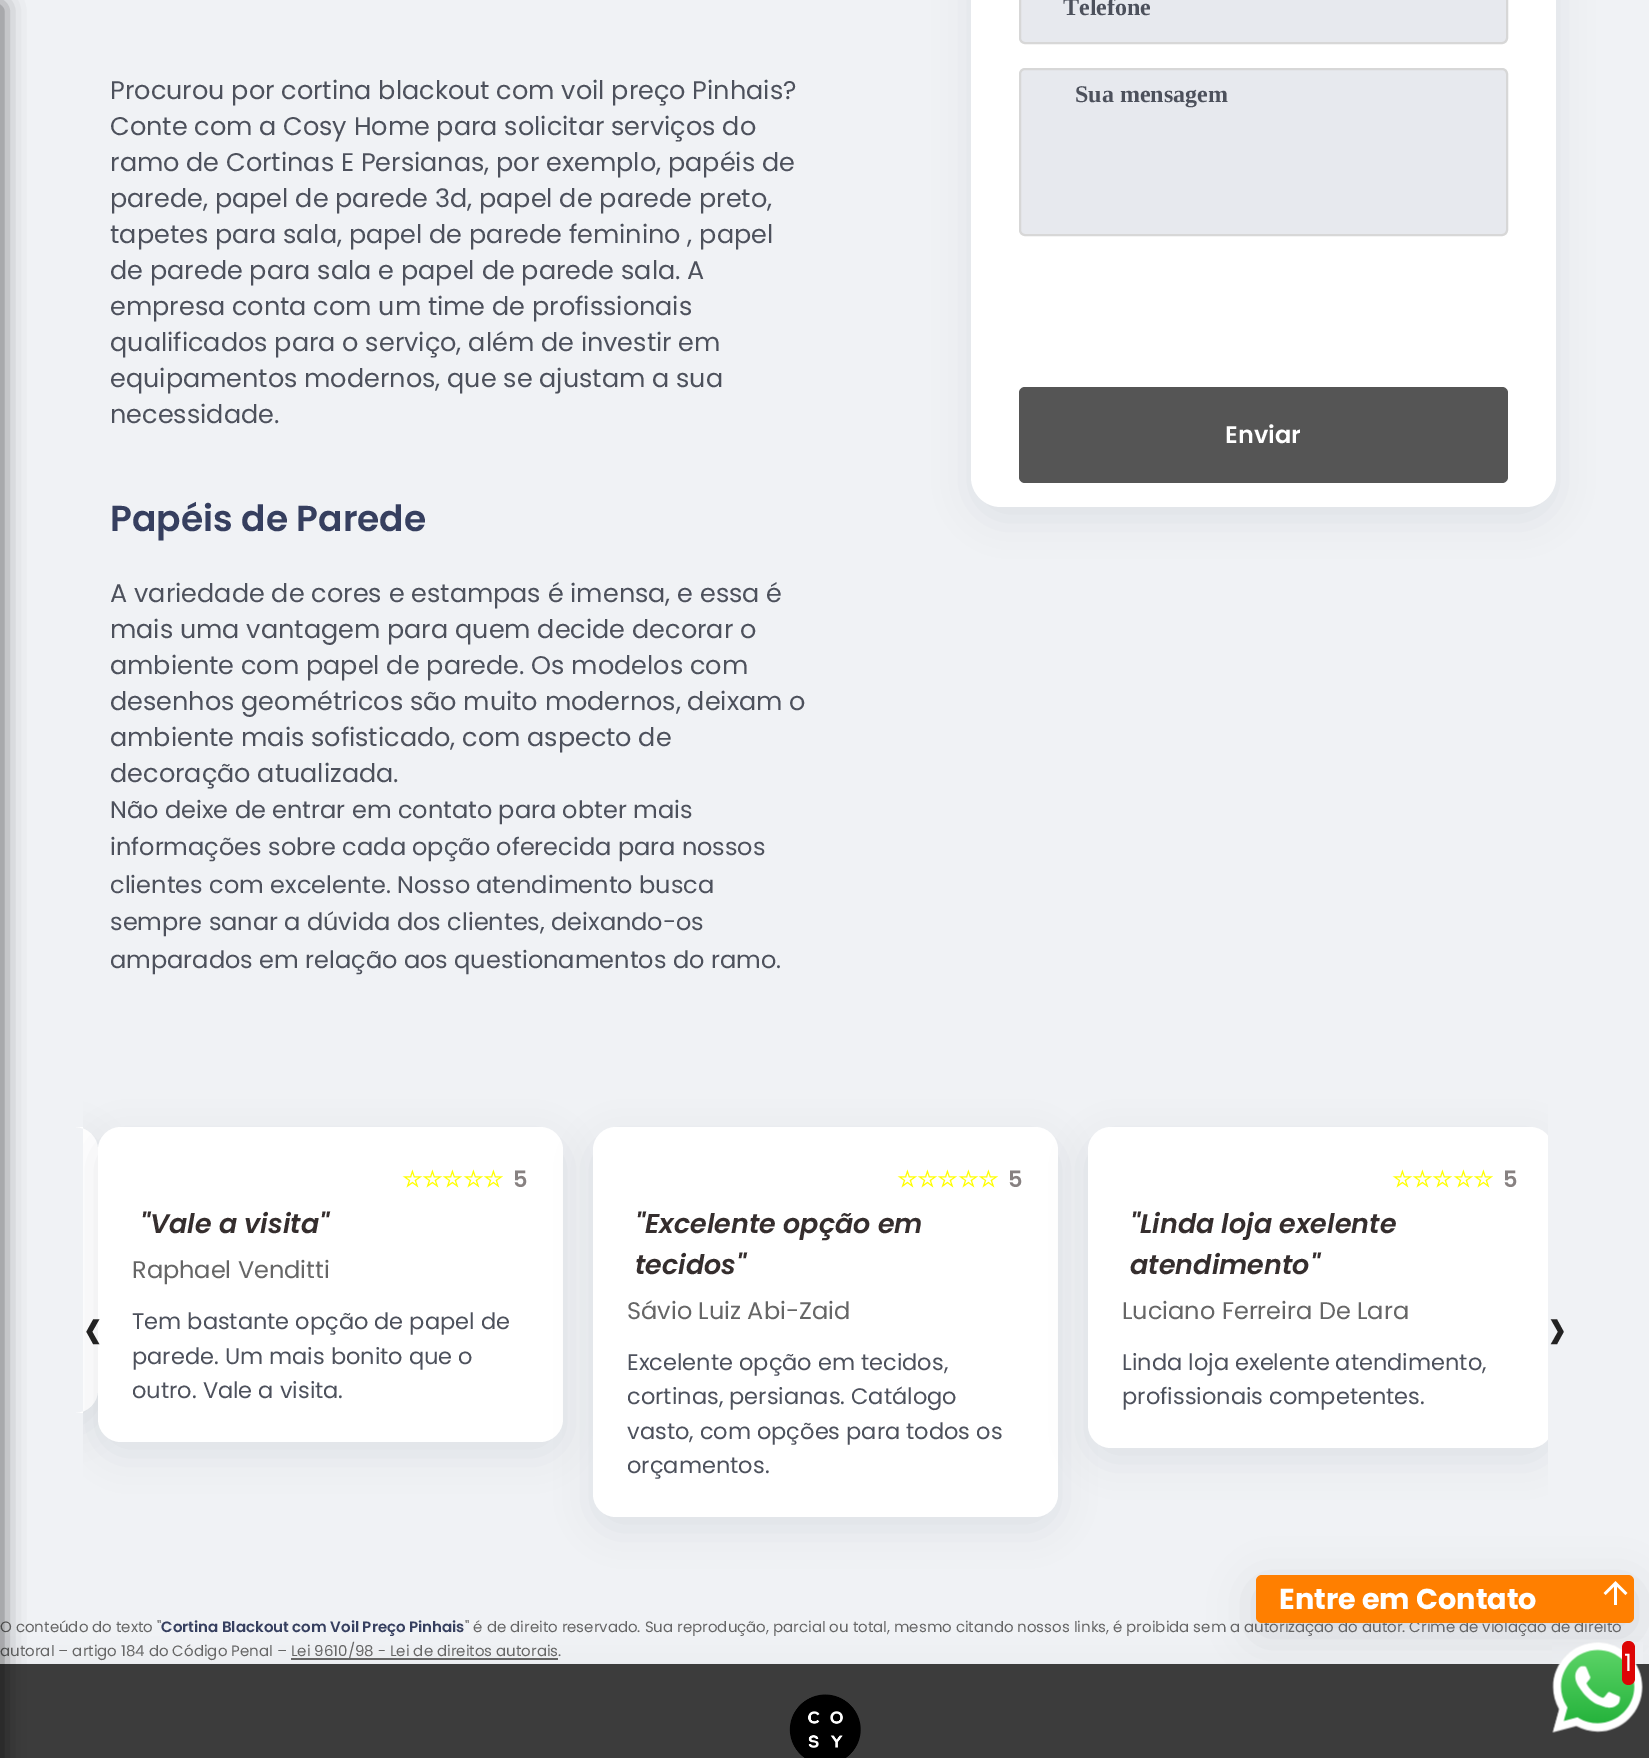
%!PS
<< /PageSize [1649 1758] /PageUsesTransparency true >> setpagedevice
/m/moveto load def
/l/rlineto load def
/c/rcurveto load def
/z/closepath load def
/f/fill load def
/s/stroke load def
/q/gsave load def
/Q_/grestore load def
/w/setlinewidth load def
/C { dup -16 bitshift 255 div exch dup -8 bitshift 255 and 255 div exch 255 and 255 div setrgbcolor } def
/F { [ exch dup neg 0 0 3 -1 roll 0 0 ] selectfont } def
/T { moveto show } def
/R { rectfill } def
/A { dup .setfillconstantalpha .setstrokeconstantalpha } def
/Q { 5 dict begin { /r /h /w /y /x } { exch def } forall
  x r add y moveto x w add y 2 copy h add r arct x w add y h add x 1 index r arct
  x y h add x y r arct x y 2 copy exch w add exch r arct closepath end } def
/S { 12 dict begin { /a /b /q /h /w /y /x } { exch def } forall gsave /was 0 def
  9 -2 -9 { dup b mul 4 div /e exch def 1 sub .425 mul 2.718 exch exp 1 add a .99 .min exch div /now exch def
    1 1 now sub 1 was sub div sub A /was now def
    w h .min e 2 mul add 0 gt { x e sub y e sub w e 2 mul add h e 2 mul add
      q e add b .6 mul add w h .min 2 div e add .min 0 .max Q fill } if } for grestore end } def
/I { 5 dict begin { /h /w /y /x /name } { exch def } forall
  gsave x y translate w h scale
  w h 8 [w 0 0 h 0 0] name (r) file false 3 colorimage grestore end } def
0 .pushpdf14devicefilter
0 1758 translate 1 -1 scale
4 setmiterlimit
16#F0F2F5 C
0 0 1649 1758 R
/Poppins-Regular 25.5 F
16#4D515C C
(Procurou por cortina blackout com voil preço Pinhais?) 110 99 T
(Conte com a Cosy Home para solicitar serviços do) 110 135 T
(ramo de Cortinas E Persianas, por exemplo, papéis de) 110 171 T
(parede, papel de parede 3d, papel de parede preto,) 110 207 T
(tapetes para sala, papel de parede feminino , papel) 110 243 T
(de parede para sala e papel de parede sala. A) 110 279 T
(empresa conta com um time de profissionais) 110 315 T
(qualificados para o serviço, além de investir em) 110 351 T
(equipamentos modernos, que se ajustam a sua) 110 387 T
(necessidade.) 110 423 T
/Poppins-SemiBold 36 F
16#363F5F C
(Papéis de Parede) 110 531 T
/Poppins-Regular 25.5 F
16#4D515C C
(A variedade de cores e estampas é imensa, e essa é) 110 602 T
(mais uma vantagem para quem decide decorar o) 110 638 T
(ambiente com papel de parede. Os modelos com) 110 674 T
(desenhos geométricos são muito modernos, deixam o) 110 710 T
(ambiente mais sofisticado, com aspecto de) 110 746 T
(decoração atualizada.) 110 782 T
/Poppins-Regular 24 F
(Não deixe de entrar em contato para obter mais) 110 818 T
(informações sobre cada opção oferecida para nossos) 110 855 T
(clientes com excelente. Nosso atendimento busca) 110 893 T
(sempre sanar a dúvida dos clientes, deixando-os) 110 930 T
(amparados em relação aos questionamentos do ramo.) 110 968 T
16#959DA5 C
971 -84 585 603 30 18 .2 S
16#FFFFFF C
971 -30 585 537 30 Q f
16#E7E9EE C
1020 -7 487 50 5 Q q f Q_
16#D7D7D7 C
2 w
s
/LiberationSerif-Bold 24 F
16#4D515C C
( Telefone) 1057 15 T
16#E7E9EE C
1020 69 487 166 5 Q q f Q_
16#D7D7D7 C
s
16#4D515C C
(  Sua mensagem) 1063 102 T
16#555555 C
1019 387 489 96 6 Q f
/Poppins-SemiBold 24 F
16#FFFFFF C
(Enviar) 1225 443 T
q
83 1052 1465 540 rectclip
16#959DA5 C
-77 1139 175 286 23 18 .2 S
Q_
83 1127 m -8 0 l 12.5 0 23 10.5 23 23 c 0 240 l 0 12.5 -10.5 23 -23 23 c 8 0 l z f
q
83 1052 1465 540 rectclip
16#959DA5 C
98 1139 465 315 23 18 .2 S
Q_
98 1127 465 315 23 Q f
/DejaVuSans-Bold 22.5 F
16#FFFF00 C
(☆☆☆☆☆) 402 1187 T
/Poppins-SemiBold 22.5 F
16#878181 C
(5) 513 1187 T
/Poppins-SemiBoldItalic 27 F
16#352E2E C
("Vale a visita") 140 1233 T
/Poppins-Regular 24 F
16#666666 C
(Raphael Venditti) 132 1278 T
/Poppins-Regular 22.5 F
16#4D515C C
(Tem bastante opção de papel de) 132 1329 T
(parede. Um mais bonito que o) 132 1364 T
(outro. Vale a visita.) 132 1398 T
16#959DA5 C
593 1139 465 390 23 18 .2 S
16#FFFFFF C
593 1127 465 390 23 Q f
/DejaVuSans-Bold 22.5 F
16#FFFF00 C
(☆☆☆☆☆) 897 1187 T
/Poppins-SemiBold 22.5 F
16#878181 C
(5) 1008 1187 T
/Poppins-SemiBoldItalic 27 F
16#352E2E C
("Excelente opção em) 635 1233 T
(tecidos") 635 1274 T
/Poppins-Regular 24 F
16#666666 C
(Sávio Luiz Abi-Zaid) 627 1319 T
/Poppins-Regular 22.5 F
16#4D515C C
(Excelente opção em tecidos,) 627 1370 T
(cortinas, persianas. Catálogo) 627 1404 T
(vasto, com opções para todos os) 627 1439 T
(orçamentos.) 627 1473 T
q
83 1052 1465 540 rectclip
16#959DA5 C
1088 1139 465 321 23 18 .2 S
Q_
/Poppins-Regular 72 F
16#222222 C
(›) 1547 1353 T
q
83 1052 1465 540 rectclip
16#FFFFFF C
1088 1127 465 321 23 Q f
Q_
/DejaVuSans-Bold 22.5 F
16#FFFF00 C
(☆☆☆☆☆) 1392 1187 T
/Poppins-SemiBold 22.5 F
16#878181 C
(5) 1503 1187 T
/Poppins-SemiBoldItalic 27 F
16#352E2E C
("Linda loja exelente) 1130 1233 T
(atendimento") 1130 1274 T
/Poppins-Regular 24 F
16#666666 C
(Luciano Ferreira De Lara) 1122 1319 T
/Poppins-Regular 22.5 F
16#4D515C C
(Linda loja exelente atendimento,) 1122 1370 T
(profissionais competentes.) 1122 1404 T
/Poppins-Regular 72 F
16#222222 C
(‹) 83 1353 T
16#959DA5 C
0 1676 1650 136 0 18 .2 S
/Poppins-Regular 15 F
16#666666 C
(O conteúdo do texto ") 0 1632 T
/Poppins-SemiBold 15 F
16#363F5F C
(Cortina Blackout com Voil Preço Pinhais) 161 1632 T
/Poppins-Regular 15 F
16#666666 C
(" é de direito reservado. Sua reprodução, parcial ou total, mesmo citando nossos links, é proibida sem a autorização do autor. Crime de violação de direito) 465 1632 T
(autoral – artigo 184 do Código Penal –) 0 1656 T
291 1658 267 2 R
(Lei 9610/98 - Lei de direitos autorais.) 291 1656 T
16#3C3C3C C
0 1664 1649 94 R
16#000000 C
-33 6 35 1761 0 11 .6 S
16#64646F C
1256 1586 378 48 6 22 .2 S
16#FF7F00 C
1256 1575 378 48 6 Q f
/Poppins-Bold 28.75 F
16#FFFFFF C
(Entre em Contato) 1279 1609 T
(1.rgb) 1603 1581 25 24 I
(2.rgb) 1552 1642 91 91 I
16#DD0505 C
1622 1641 13 44 6.5 Q f
/Poppins-Regular 24 F
16#FFFFFF C
(1) 1624 1671 T
(3.rgb) 789 1694 72 64 I
.poppdf14devicefilter showpage
